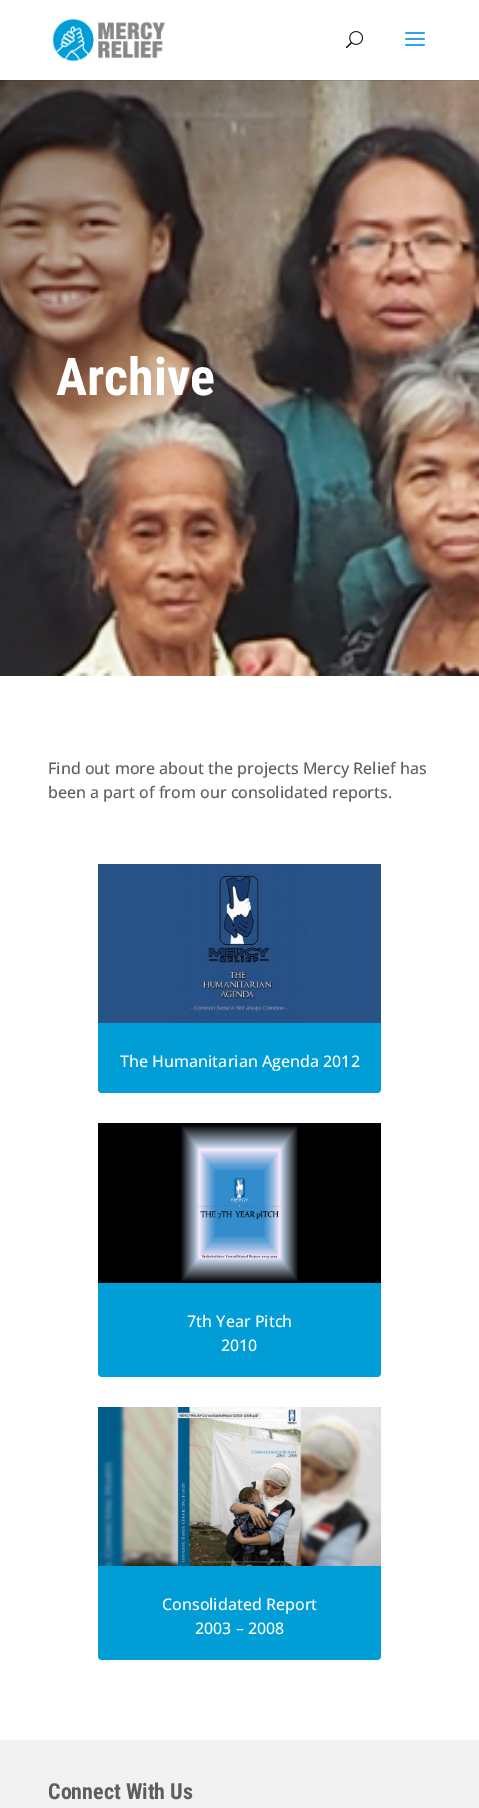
%!PS
<< /PageSize [479 1808] /PageUsesTransparency true >> setpagedevice
/f/fill load def
/C { dup -16 bitshift 255 div exch dup -8 bitshift 255 and 255 div exch 255 and 255 div setrgbcolor } def
/F { [ exch dup neg 0 0 3 -1 roll 0 0 ] selectfont } def
/T { moveto show } def
/R { rectfill } def
/A { dup .setfillconstantalpha .setstrokeconstantalpha } def
/Q { 5 dict begin { /r /h /w /y /x } { exch def } forall
  x r add y moveto x w add y 2 copy h add r arct x w add y h add x 1 index r arct
  x y h add x y r arct x y 2 copy exch w add exch r arct closepath end } def
/I { 5 dict begin { /h /w /y /x /name } { exch def } forall
  gsave x y translate w h scale
  w h 8 [w 0 0 h 0 0] name (r) file false 3 colorimage grestore end } def
0 .pushpdf14devicefilter
0 1808 translate 1 -1 scale
4 setmiterlimit
16#FFFFFF C
0 0 479 1808 R
(4.rgb) 0 80 479 596 I
0.1 A
16#000000 C
0 80 479 1 R
1 A
(1.rgb) 52 18 113 44 I
(2.rgb) 346 31 17 18 I
(3.rgb) 405 32 20 14 I
/RobotoCondensed-Bold 52 F
16#FFFFFF C
(Archive) 56 395 T
/OpenSans-Medium 16 F
16#5E5E5E C
(Find out more about the projects Mercy Relief has) 48 774 T
(been a part of from our consolidated reports.) 48 798 T
16#009DD6 C
98 864 283 229 4 Q f
(5.rgb) 98 864 283 159 I
16#FFFFFF C
(The Humanitarian Agenda 2012) 120 1067 T
16#009DD6 C
98 1123 283 254 4 Q f
(6.rgb) 98 1123 283 160 I
16#FFFFFF C
(7th Year Pitch) 187 1327 T
(2010) 221 1351 T
16#009DD6 C
98 1407 283 253 4 Q f
(7.rgb) 98 1407 283 159 I
16#FFFFFF C
(Consolidated Report) 162 1610 T
(2003 – 2008) 195 1634 T
16#F2F2F2 C
0 1740 479 68 R
/RobotoCondensed-Bold 22 F
16#5E5E5E C
(Connect With Us) 48 1799 T
.poppdf14devicefilter showpage
